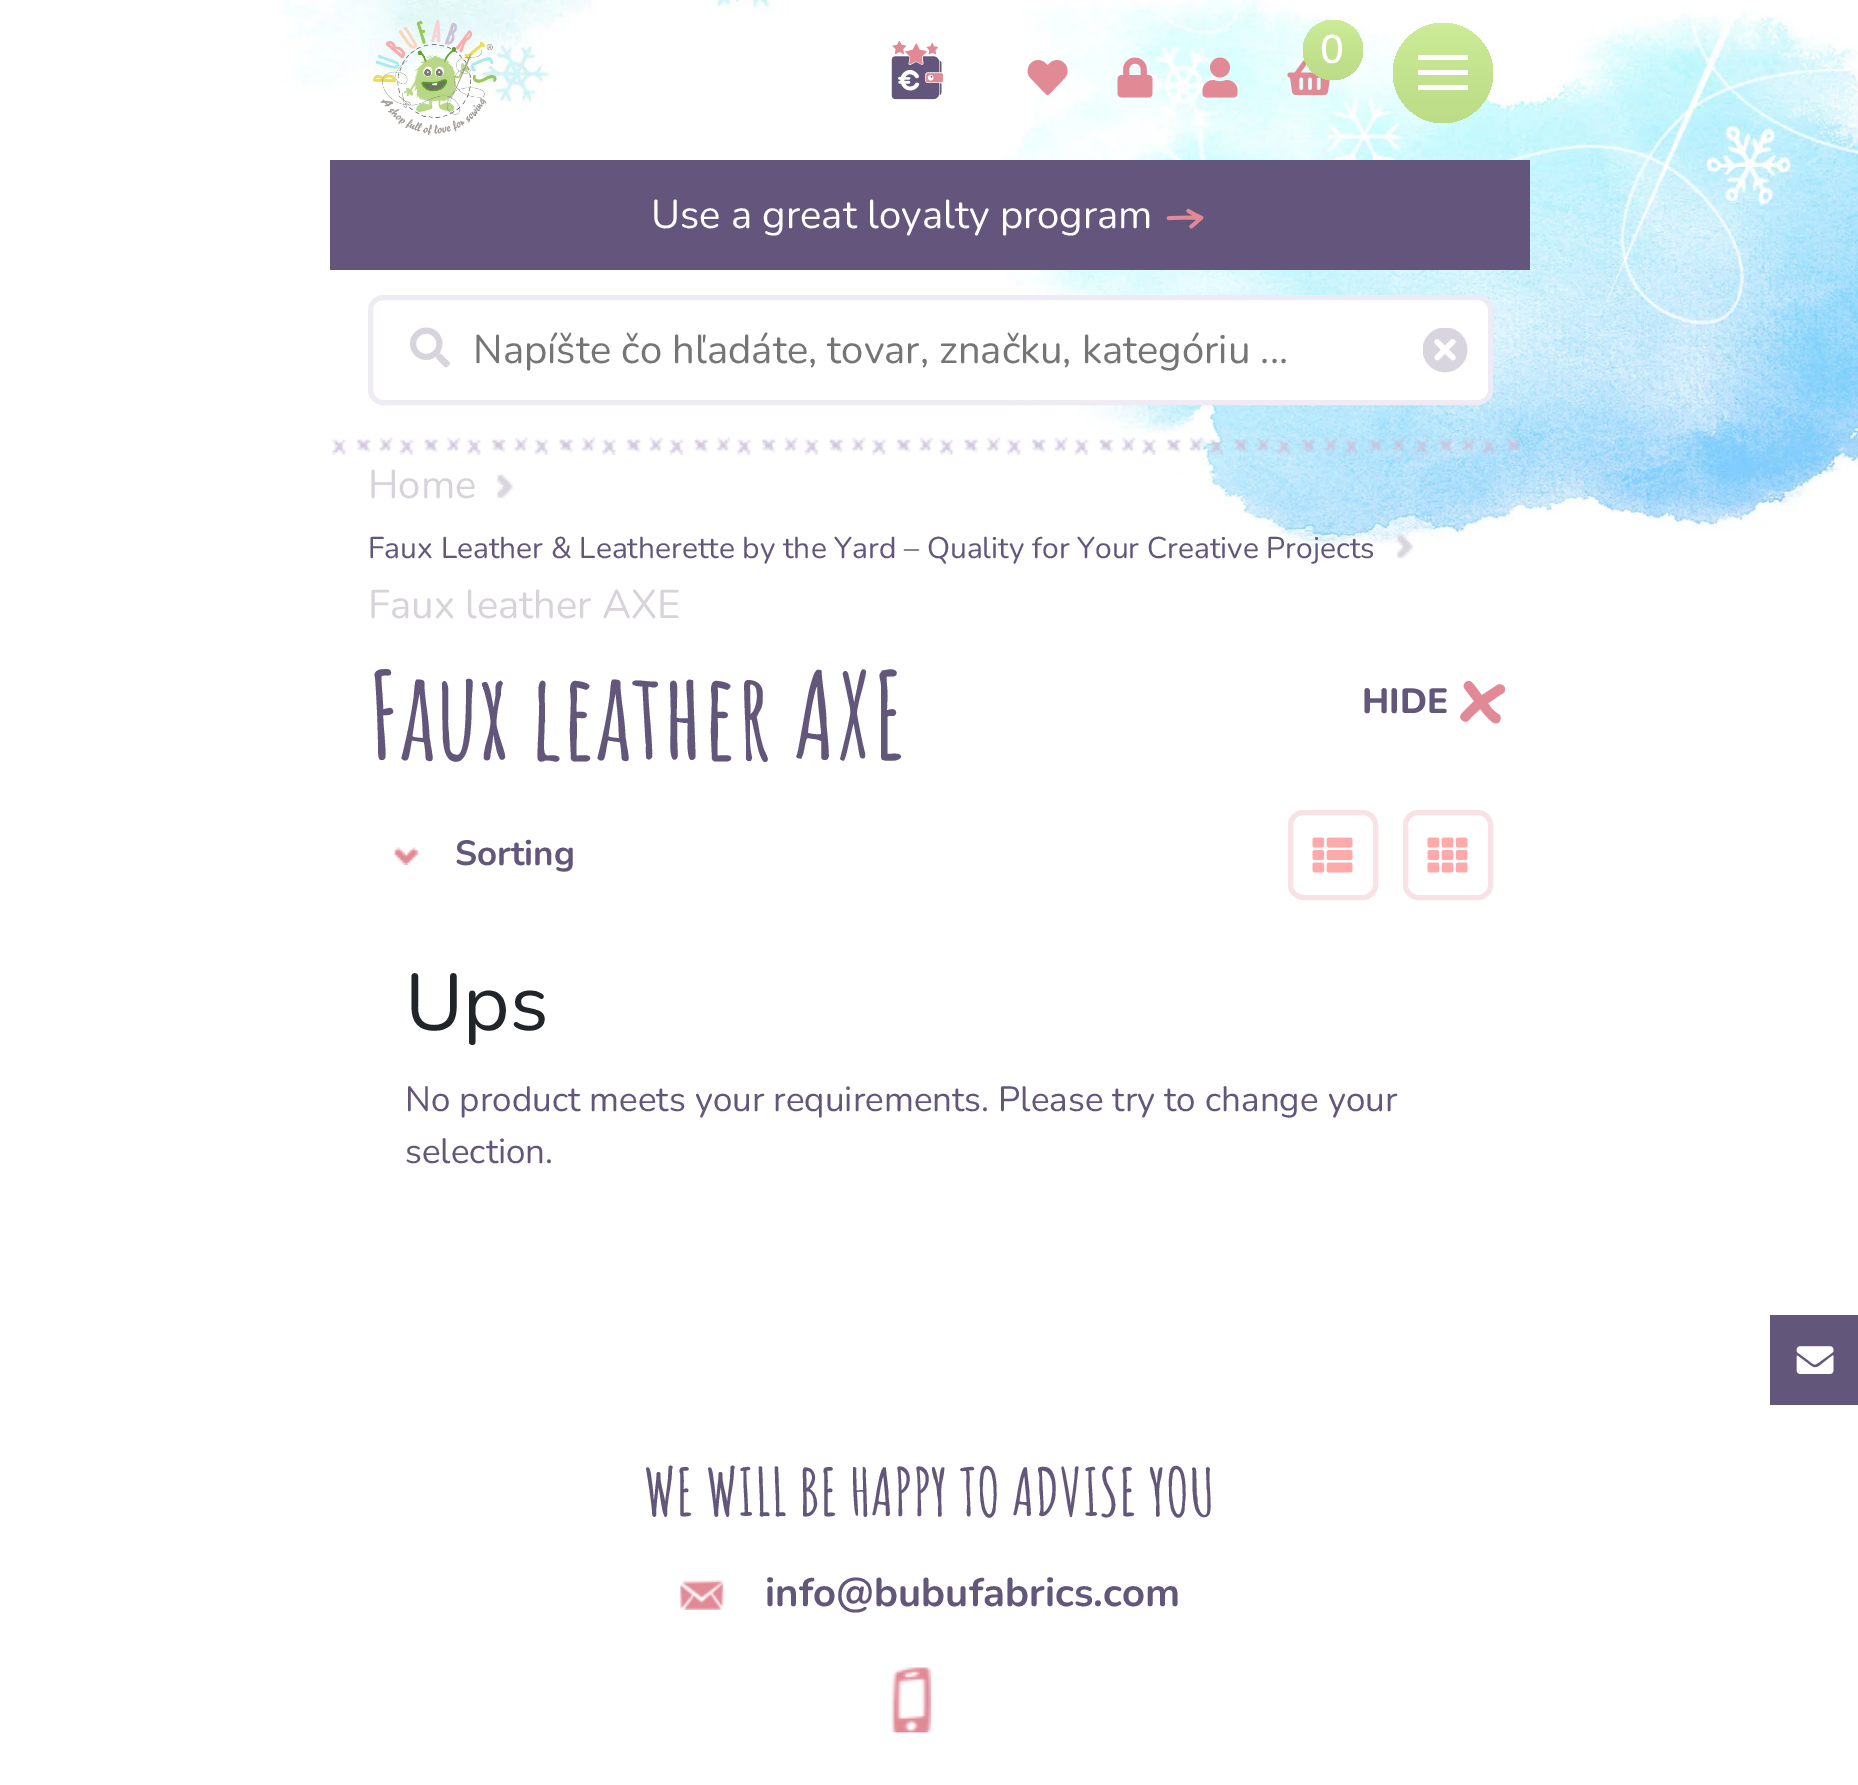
%!PS
<< /PageSize [1858 1785] >> setpagedevice
/f/fill load def
/s/stroke load def
/q/gsave load def
/Q_/grestore load def
/w/setlinewidth load def
/C { dup -16 bitshift 255 div exch dup -8 bitshift 255 and 255 div exch 255 and 255 div setrgbcolor } def
/F { [ exch dup neg 0 0 3 -1 roll 0 0 ] selectfont } def
/T { moveto show } def
/R { rectfill } def
/O { newpath 0 360 arc closepath } def
/Q { 5 dict begin { /r /h /w /y /x } { exch def } forall
  x r add y moveto x w add y 2 copy h add r arct x w add y h add x 1 index r arct
  x y h add x y r arct x y 2 copy exch w add exch r arct closepath end } def
/I { 5 dict begin { /h /w /y /x /name } { exch def } forall
  gsave x y translate w h scale
  w h 8 [w 0 0 h 0 0] name (r) file false 3 colorimage grestore end } def
0 1785 translate 1 -1 scale
4 setmiterlimit
16#FFFFFF C
0 0 1858 1785 R
(1.rgb) 281 0 1577 555 I
(2.rgb) 373 19 124 117 I
(3.rgb) 891 40 52 60 I
(4.rgb) 1027 60 41 35 I
(5.rgb) 1117 57 36 41 I
(6.rgb) 1202 57 36 41 I
(7.rgb) 1287 60 43 35 I
q 1333 50 30 O clip newpath
<< /ShadingType 2 /ColorSpace /DeviceRGB /Coords [1333 80 1333 20] /Extend [true true] /Function << /FunctionType 3 /Domain [0 1] /Functions [<< /FunctionType 2 /Domain [0 1] /C0 [.737 .863 .529] /C1 [.737 .863 .529] /N 1 >> << /FunctionType 2 /Domain [0 1] /C0 [.737 .863 .529] /C1 [.769 .894 .565] /N 1 >> << /FunctionType 2 /Domain [0 1] /C0 [.769 .894 .565] /C1 [.8 .925 .596] /N 1 >>] /Bounds [.01 .58] /Encode [0 1 0 1 0 1] >> >> shfill Q_
/Nunito-SemiBold 40 F
(0) 1320 63 T
q 1443 73 50 O clip newpath
<< /ShadingType 2 /ColorSpace /DeviceRGB /Coords [1443 123 1443 23] /Extend [true true] /Function << /FunctionType 3 /Domain [0 1] /Functions [<< /FunctionType 2 /Domain [0 1] /C0 [.737 .863 .529] /C1 [.737 .863 .529] /N 1 >> << /FunctionType 2 /Domain [0 1] /C0 [.737 .863 .529] /C1 [.769 .894 .565] /N 1 >> << /FunctionType 2 /Domain [0 1] /C0 [.769 .894 .565] /C1 [.8 .925 .596] /N 1 >>] /Bounds [.01 .58] /Encode [0 1 0 1 0 1] >> >> shfill Q_
1418 70 50 5 R
1418 55 50 5 R
1418 85 50 5 R
16#64557D C
330 160 1200 110 R
/Nunito-Regular 40 F
16#FFFFFF C
(Use a great loyalty program) 651 228 T
(8.rgb) 1166 208 38 21 I
(9.rgb) 332 437 1189 18 I
370.5 297.5 1120 105 12.5 Q q f Q_
16#EEEBF4 C
5 w
s
(10.rgb) 410 327 40 41 I
16#757575 C
(Napíšte čo hľadáte, tovar, značku, kategóriu ...) 473 363 T
(11.rgb) 1423 328 45 45 I
16#D8D2DB C
(Home) 368 498 T
(12.rgb) 496 474 18 26 I
/Nunito-Regular 30 F
16#62567A C
(Faux Leather & Leatherette by the Yard – Quality for Your Creative Projects) 368 558 T
(13.rgb) 1396 534 18 26 I
/Nunito-Regular 40 F
16#D8D2DB C
(Faux leather AXE) 368 618 T
/AmaticSC-Bold 120 F
16#62567A C
(Faux leather AXE) 368 760 T
/Nunito-ExtraBold 35 F
(HIDE) 1362 713 T
(14.rgb) 1460 680 45 44 I
(15.rgb) 392 847 27 18 I
/Nunito-Bold 35 F
(Sorting) 455 865 T
16#F8E2E5 C
1290.5 812.5 85 85 12.5 Q s
(16.rgb) 1312 837 41 36 I
1405.5 812.5 85 85 12.5 Q s
(17.rgb) 1427 837 41 36 I
/Nunito-Regular 80 F
16#212529 C
(Ups) 405 1030 T
/Nunito-Regular 35 F
16#62567A C
(No product meets your requirements. Please try to change your) 405 1111 T
(selection.) 405 1163 T
/AmaticSC-Bold 65 F
(WE WILL BE HAPPY TO ADVISE YOU) 644 1516 T
(18.rgb) 680 1580 44 30 I
/Nunito-Bold 40 F
(info@bubufabrics.com) 765 1606 T
(19.rgb) 891 1667 40 66 I
(20.rgb) 1770 1315 88 90 I
showpage
